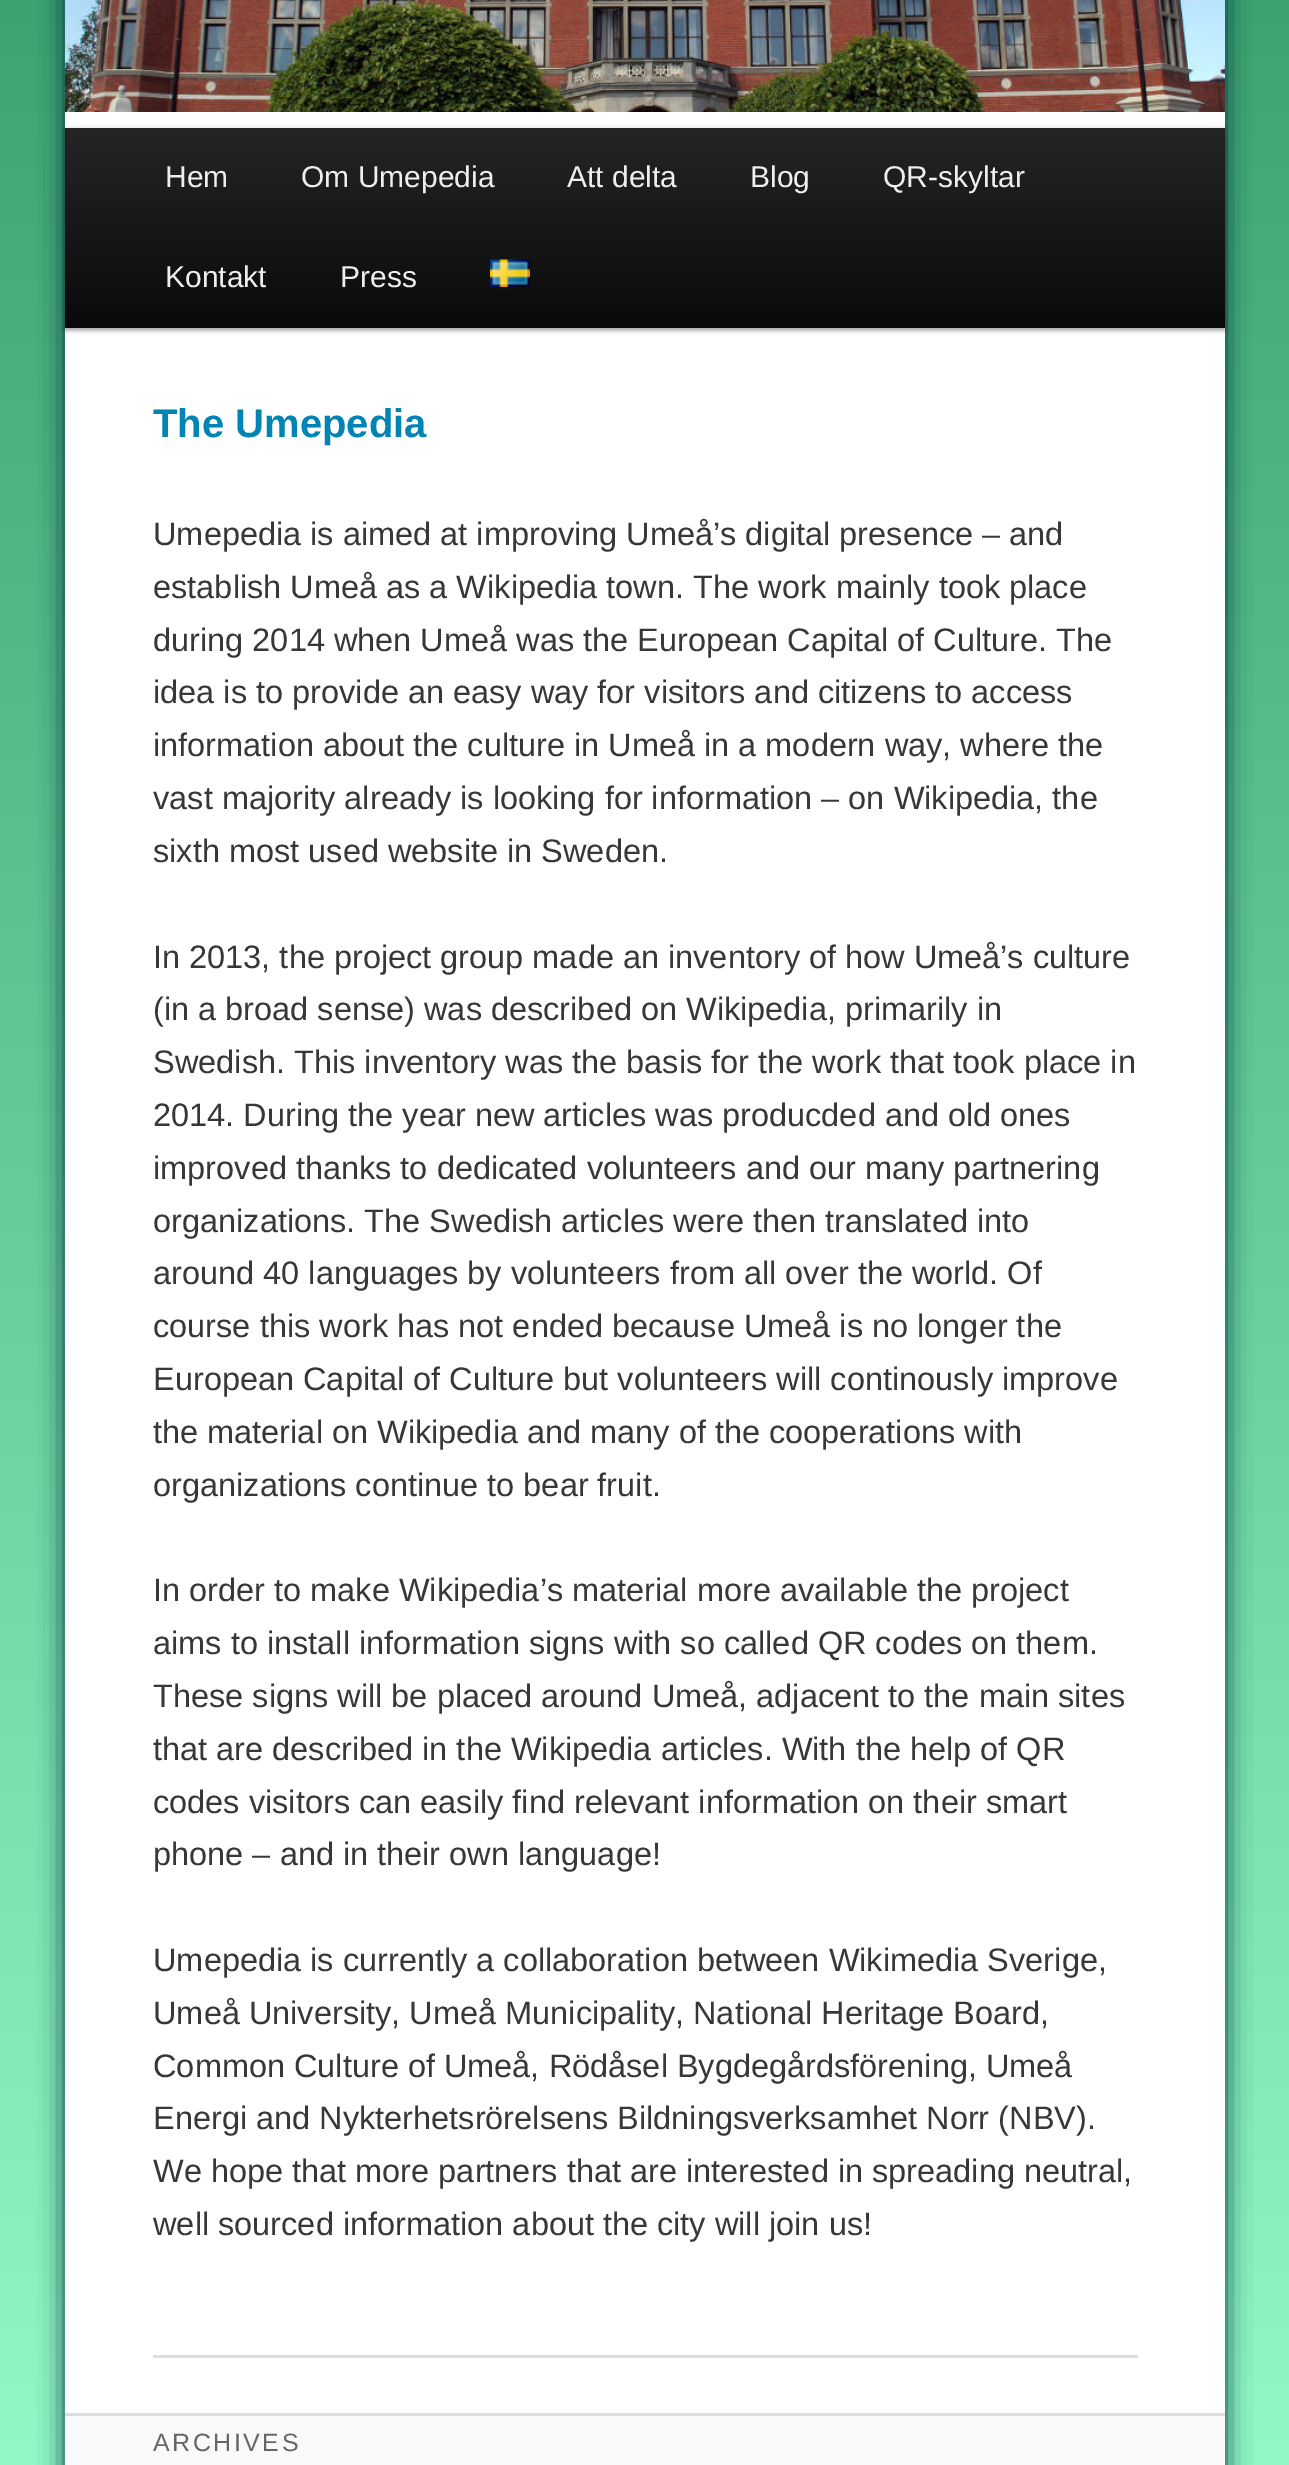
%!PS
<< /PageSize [1289 2465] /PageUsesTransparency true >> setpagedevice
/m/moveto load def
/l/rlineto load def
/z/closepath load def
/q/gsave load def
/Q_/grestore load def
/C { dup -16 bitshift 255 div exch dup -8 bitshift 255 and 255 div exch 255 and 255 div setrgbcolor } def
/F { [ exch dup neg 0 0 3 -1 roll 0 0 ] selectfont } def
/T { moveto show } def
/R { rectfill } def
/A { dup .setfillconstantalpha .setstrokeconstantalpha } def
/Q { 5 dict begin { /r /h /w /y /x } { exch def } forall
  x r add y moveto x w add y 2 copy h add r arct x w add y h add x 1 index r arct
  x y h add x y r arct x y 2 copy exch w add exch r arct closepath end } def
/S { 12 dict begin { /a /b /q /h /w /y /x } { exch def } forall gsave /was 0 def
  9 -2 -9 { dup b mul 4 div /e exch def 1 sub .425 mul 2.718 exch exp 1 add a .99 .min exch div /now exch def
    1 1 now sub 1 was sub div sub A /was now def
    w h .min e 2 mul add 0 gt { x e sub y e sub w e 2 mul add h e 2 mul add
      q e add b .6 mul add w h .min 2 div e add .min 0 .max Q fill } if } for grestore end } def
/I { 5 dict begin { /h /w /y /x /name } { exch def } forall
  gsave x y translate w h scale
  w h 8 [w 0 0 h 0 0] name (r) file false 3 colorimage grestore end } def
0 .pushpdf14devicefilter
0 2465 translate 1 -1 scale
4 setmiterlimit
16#FFFFFF C
0 0 1289 2465 R
q 0 0 m 1289 0 l 0 2465 l -1289 0 l z clip newpath
<< /ShadingType 2 /ColorSpace /DeviceRGB /Coords [645 -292 645 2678] /Extend [true true] /Function << /FunctionType 2 /Domain [0 1] /C0 [.2 .6 .4] /C1 [.6 1 .8] /N 1 >> >> shfill Q_
16#003242 C
65 -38 1160 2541 0 12.5 1 S
16#FFFFFF C
65 112 1160 2301 R
(1.rgb) 65 0 1160 112 I
16#000000 C
65 130 1160 200 0 2.5 .4 S
q 65 128 m 1160 0 l 0 200 l -1160 0 l z clip newpath
<< /ShadingType 2 /ColorSpace /DeviceRGB /Coords [645 127 645 328] /Extend [true true] /Function << /FunctionType 2 /Domain [0 1] /C0 [.145 .145 .145] /C1 [.039 .039 .039] /N 1 >> >> shfill Q_
/LiberationSans-Regular 30 F
16#EEEEEE C
(Hem) 165 187 T
(Om Umepedia) 301 187 T
(Att delta) 567 187 T
(Blog) 750 187 T
(QR-skyltar) 883 187 T
(Kontakt) 165 287 T
(Press) 340 287 T
(2.rgb) 490 259 40 28 I
16#DDDDDD C
153 2355 985 3 R
/LiberationSans-Bold 40 F
16#0084B4 C
(The Umepedia) 153 437 T
/LiberationSans-Regular 32.5 F
16#373737 C
(Umepedia is aimed at improving Umeå’s digital presence – and) 153 545 T
(establish Umeå as a Wikipedia town. The work mainly took place) 153 598 T
(during 2014 when Umeå was the European Capital of Culture. The) 153 651 T
(idea is to provide an easy way for visitors and citizens to access) 153 703 T
(information about the culture in Umeå in a modern way, where the) 153 756 T
(vast majority already is looking for information – on Wikipedia, the) 153 809 T
(sixth most used website in Sweden.) 153 862 T
(In 2013, the project group made an inventory of how Umeå’s culture) 153 968 T
(\(in a broad sense\) was described on Wikipedia, primarily in) 153 1020 T
(Swedish. This inventory was the basis for the work that took place in) 153 1073 T
(2014. During the year new articles was producded and old ones) 153 1126 T
(improved thanks to dedicated volunteers and our many partnering) 153 1179 T
(organizations. The Swedish articles were then translated into) 153 1232 T
(around 40 languages by volunteers from all over the world. Of) 153 1284 T
(course this work has not ended because Umeå is no longer the) 153 1337 T
(European Capital of Culture but volunteers will continously improve) 153 1390 T
(the material on Wikipedia and many of the cooperations with) 153 1443 T
(organizations continue to bear fruit.) 153 1496 T
(In order to make Wikipedia’s material more available the project) 153 1601 T
(aims to install information signs with so called QR codes on them.) 153 1654 T
(These signs will be placed around Umeå, adjacent to the main sites) 153 1707 T
(that are described in the Wikipedia articles. With the help of QR) 153 1760 T
(codes visitors can easily find relevant information on their smart) 153 1813 T
(phone – and in their own language!) 153 1865 T
(Umepedia is currently a collaboration between Wikimedia Sverige,) 153 1971 T
(Umeå University, Umeå Municipality, National Heritage Board,) 153 2024 T
(Common Culture of Umeå, Rödåsel Bygdegårdsförening, Umeå) 153 2077 T
(Energi and Nykterhetsrörelsens Bildningsverksamhet Norr \(NBV\).) 153 2129 T
(We hope that more partners that are interested in spreading neutral,) 153 2182 T
(well sourced information about the city will join us!) 153 2235 T
16#F9F9F9 C
65 2416 1160 49 R
/LiberationSans-Regular 25 F
16#666666 C
153 2451 m 2.5 0 (ARCHIVES) ashow
16#DDDDDD C
65 2413 1160 3 R
.poppdf14devicefilter showpage
